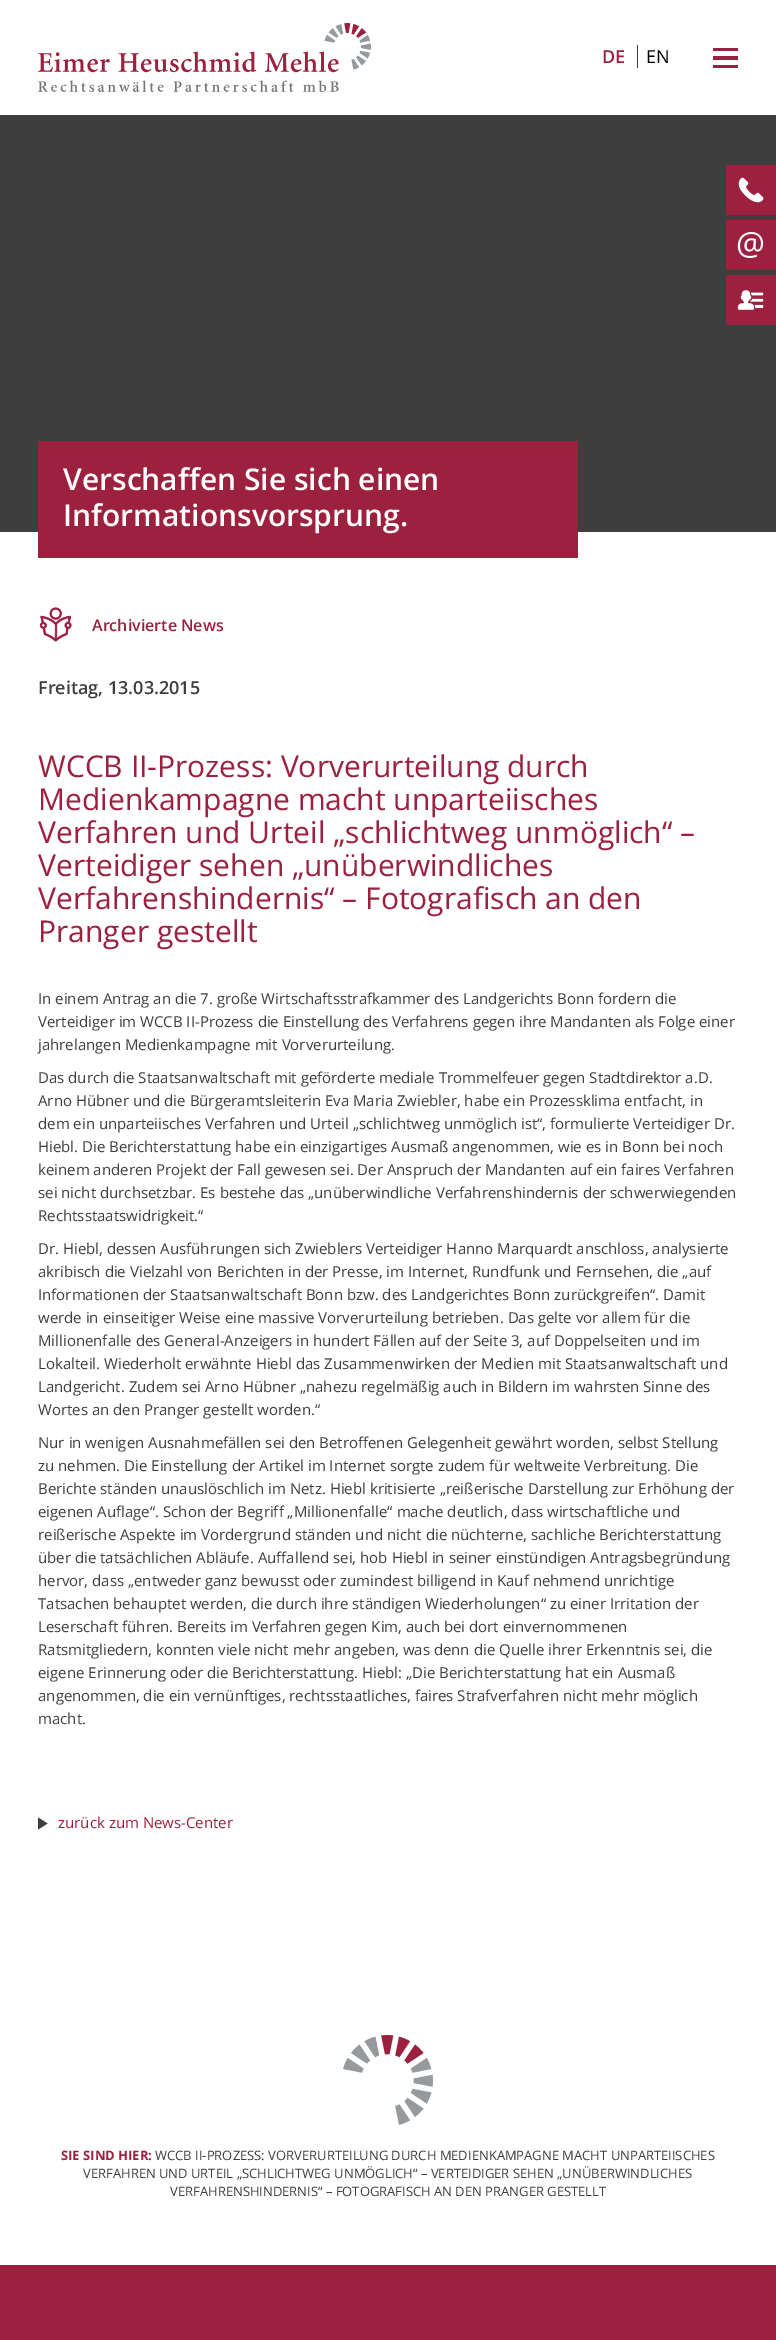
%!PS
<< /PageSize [776 2340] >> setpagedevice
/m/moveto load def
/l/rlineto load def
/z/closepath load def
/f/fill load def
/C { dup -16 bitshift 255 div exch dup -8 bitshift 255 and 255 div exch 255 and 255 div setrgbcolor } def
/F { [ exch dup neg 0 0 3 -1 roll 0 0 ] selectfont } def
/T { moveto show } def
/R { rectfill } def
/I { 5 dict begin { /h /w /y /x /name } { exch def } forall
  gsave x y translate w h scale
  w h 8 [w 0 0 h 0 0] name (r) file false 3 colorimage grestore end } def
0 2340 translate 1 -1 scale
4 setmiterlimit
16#FFFFFF C
0 0 776 2340 R
(1.rgb) 38 23 333 69 I
/OpenSans-SemiBold 18 F
16#9C213F C
(DE) 602 63 T
16#3E3E3E C
637 45 1 23 R
/OpenSans-Regular 18 F
16#000000 C
(EN) 646 63 T
16#9C213F C
713 48 25 3 R
713 56 25 4 R
713 65 25 3 R
16#3E3E3E C
0 115 776 417 R
16#9C213F C
726 165 50 50 R
(2.rgb) 738 177 26 26 I
726 220 50 50 R
(3.rgb) 737 232 27 26 I
726 275 50 50 R
(4.rgb) 737 290 27 20 I
38 441 540 117 R
/OpenSans-SemiBold 30 F
16#FFFFFF C
(Verschaffen Sie sich einen) 63 490 T
(Informationsvorsprung.) 63 526 T
(5.rgb) 39 607 33 35 I
/OpenSans-SemiBold 16 F
16#9C213F C
(Archivierte News) 92 631 T
/OpenSans-SemiBold 18 F
16#3E3E3E C
(Freitag, 13.03.2015) 38 694 T
/OpenSans-Regular 30 F
16#9C213F C
(WCCB II-Prozess: Vorverurteilung durch) 38 777 T
(Medienkampagne macht unparteiisches) 38 810 T
(Verfahren und Urteil „schlichtweg unmöglich“ –) 38 843 T
(Verteidiger sehen „unüberwindliches) 38 876 T
(Verfahrenshindernis“ – Fotografisch an den) 38 909 T
(Pranger gestellt) 38 942 T
/OpenSans-Regular 15 F
16#3E3E3E C
(In einem Antrag an die 7. große Wirtschaftsstrafkammer des Landgerichts Bonn fordern die) 38 1004 T
(Verteidiger im WCCB II-Prozess die Einstellung des Verfahrens gegen ihre Mandanten als Folge einer) 38 1027 T
(jahrelangen Medienkampagne mit Vorverurteilung.) 38 1050 T
(Das durch die Staatsanwaltschaft mit geförderte mediale Trommelfeuer gegen Stadtdirektor a.D.) 38 1083 T
(Arno Hübner und die Bürgeramtsleiterin Eva Maria Zwiebler, habe ein Prozessklima entfacht, in) 38 1106 T
(dem ein unparteiisches Verfahren und Urteil „schlichtweg unmöglich ist“, formulierte Verteidiger Dr.) 38 1129 T
(Hiebl. Die Berichterstattung habe ein einzigartiges Ausmaß angenommen, wie es in Bonn bei noch) 38 1152 T
(keinem anderen Projekt der Fall gewesen sei. Der Anspruch der Mandanten auf ein faires Verfahren) 38 1175 T
(sei nicht durchsetzbar. Es bestehe das „unüberwindliche Verfahrenshindernis der schwerwiegenden) 38 1198 T
(Rechtsstaatswidrigkeit.“) 38 1221 T
(Dr. Hiebl, dessen Ausführungen sich Zwieblers Verteidiger Hanno Marquardt anschloss, analysierte) 38 1254 T
(akribisch die Vielzahl von Berichten in der Presse, im Internet, Rundfunk und Fernsehen, die „auf) 38 1277 T
(Informationen der Staatsanwaltschaft Bonn bzw. des Landgerichtes Bonn zurückgreifen“. Damit) 38 1300 T
(werde in einseitiger Weise eine massive Vorverurteilung betrieben. Das gelte vor allem für die) 38 1323 T
(Millionenfalle des General-Anzeigers in hundert Fällen auf der Seite 3, auf Doppelseiten und im) 38 1346 T
(Lokalteil. Wiederholt erwähnte Hiebl das Zusammenwirken der Medien mit Staatsanwaltschaft und) 38 1369 T
(Landgericht. Zudem sei Arno Hübner „nahezu regelmäßig auch in Bildern im wahrsten Sinne des) 38 1392 T
(Wortes an den Pranger gestellt worden.“) 38 1415 T
(Nur in wenigen Ausnahmefällen sei den Betroffenen Gelegenheit gewährt worden, selbst Stellung) 38 1448 T
(zu nehmen. Die Einstellung der Artikel im Internet sorgte zudem für weltweite Verbreitung. Die) 38 1471 T
(Berichte ständen unauslöschlich im Netz. Hiebl kritisierte „reißerische Darstellung zur Erhöhung der) 38 1494 T
(eigenen Auflage“. Schon der Begriff „Millionenfalle“ mache deutlich, dass wirtschaftliche und) 38 1517 T
(reißerische Aspekte im Vordergrund ständen und nicht die nüchterne, sachliche Berichterstattung) 38 1540 T
(über die tatsächlichen Abläufe. Auffallend sei, hob Hiebl in seiner einstündigen Antragsbegründung) 38 1563 T
(hervor, dass „entweder ganz bewusst oder zumindest billigend in Kauf nehmend unrichtige) 38 1586 T
(Tatsachen behauptet werden, die durch ihre ständigen Wiederholungen“ zu einer Irritation der) 38 1609 T
(Leserschaft führen. Bereits im Verfahren gegen Kim, auch bei dort einvernommenen) 38 1632 T
(Ratsmitgliedern, konnten viele nicht mehr angeben, was denn die Quelle ihrer Erkenntnis sei, die) 38 1655 T
(eigene Erinnerung oder die Berichterstattung. Hiebl: „Die Berichterstattung hat ein Ausmaß) 38 1678 T
(angenommen, die ein vernünftiges, rechtsstaatliches, faires Strafverfahren nicht mehr möglich) 38 1701 T
(macht.) 38 1724 T
38 1817.5 m 0 12 l 9.5 -6 l z f
16#9C213F C
(zurück zum News-Center) 58 1828 T
(6.rgb) 343 2035 90 90 I
/OpenSans-Bold 13 F
(SIE SIND HIER:) 61 2160 T
/OpenSans-Regular 13 F
16#3E3E3E C
(WCCB II-PROZESS: VORVERURTEILUNG DURCH MEDIENKAMPAGNE MACHT UNPARTEIISCHES) 155 2160 T
(VERFAHREN UND URTEIL „SCHLICHTWEG UNMÖGLICH“ – VERTEIDIGER SEHEN „UNÜBERWINDLICHES) 83 2178 T
(VERFAHRENSHINDERNIS“ – FOTOGRAFISCH AN DEN PRANGER GESTELLT) 170 2196 T
16#9C213F C
0 2265 776 75 R
showpage
